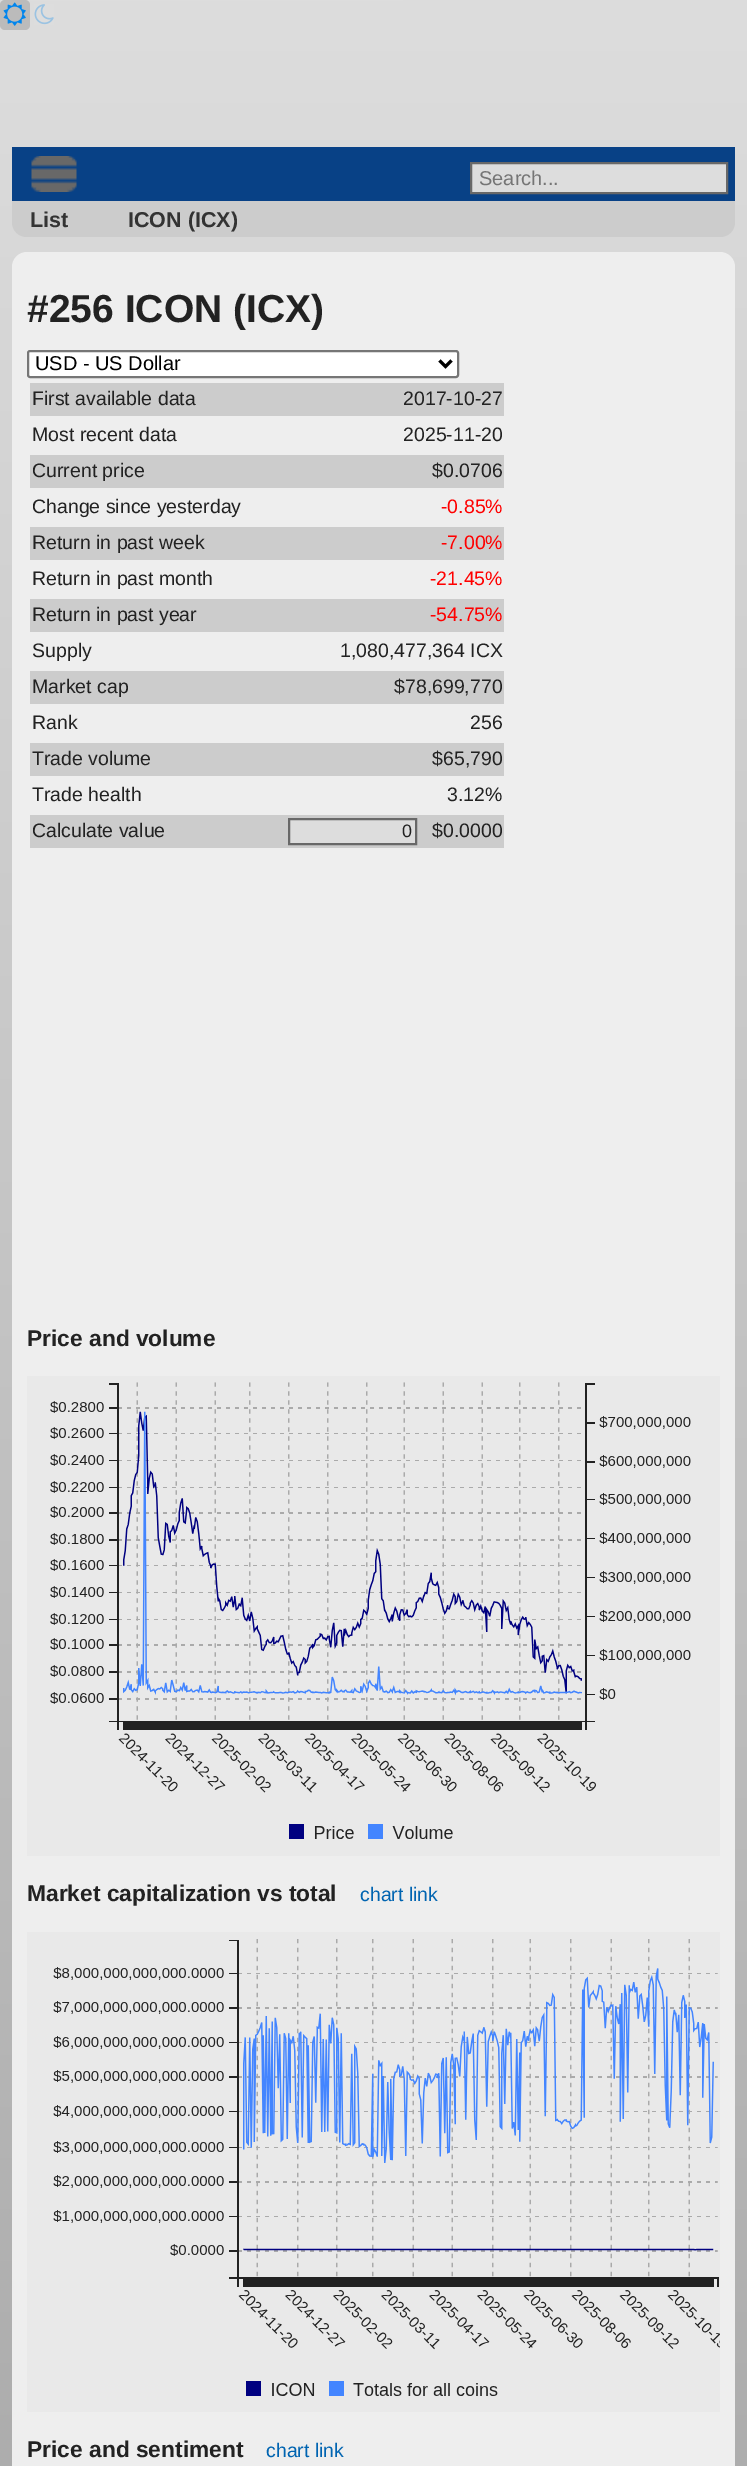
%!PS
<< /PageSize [747 2466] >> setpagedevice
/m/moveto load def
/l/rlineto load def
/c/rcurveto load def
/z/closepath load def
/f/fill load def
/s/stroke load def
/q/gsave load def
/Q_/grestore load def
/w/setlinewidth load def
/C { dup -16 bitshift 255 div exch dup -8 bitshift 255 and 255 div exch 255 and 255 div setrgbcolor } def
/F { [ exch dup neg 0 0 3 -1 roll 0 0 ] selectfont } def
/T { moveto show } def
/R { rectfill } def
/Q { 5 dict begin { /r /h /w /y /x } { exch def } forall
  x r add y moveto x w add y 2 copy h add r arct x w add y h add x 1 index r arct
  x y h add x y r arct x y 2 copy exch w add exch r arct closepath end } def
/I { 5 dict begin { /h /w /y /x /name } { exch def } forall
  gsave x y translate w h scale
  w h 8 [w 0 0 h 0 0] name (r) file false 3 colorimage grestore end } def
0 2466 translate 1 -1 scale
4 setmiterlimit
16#FFFFFF C
0 0 747 2466 R
q 0 0 m 747 0 l 0 2466 l -747 0 l z clip newpath
<< /ShadingType 2 /ColorSpace /DeviceRGB /Coords [373 0 374 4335] /Extend [true true] /Function << /FunctionType 2 /Domain [0 1] /C0 [.867 .867 .867] /C1 [.533 .533 .533] /N 1 >> >> shfill Q_
16#BBBBBB C
0 0 30 30 5 Q f
(1.rgb) 3 2 23 24 I
(2.rgb) 34 4 20 21 I
16#084186 C
12 147 723 54 R
(3.rgb) 31 156 46 36 I
16#DDDDDD C
471 163 m 256 0 l 0 30 l -256 0 l z q f Q_
16#686868 C
2 w
s
/LiberationSans-Regular 20 F
16#757575 C
(Search...) 479 185 T
16#CCCCCC C
12 201 m 723 0 l 0 21 l 0 8.5 -6.5 15 -15 15 c -693 0 l -8.5 0 -15 -6.5 -15 -15 c z f
24 236 1 1 R
/LiberationSans-Bold 21.5 F
16#333333 C
(List) 30 227 T
(ICON \(ICX\)) 128 227 T
16#EEEEEE C
12 252 723 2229 15 Q f
/LiberationSans-Bold 39 F
16#222222 C
(#256 ICON \(ICX\)) 27 322 T
16#FFFFFF C
28 351 430 26 2 Q q f Q_
16#767676 C
s
16#000000 C
3 w
439.5 360.5 m 6 6 l 6 -6 l s
/LiberationSans-Regular 20 F
(USD - US Dollar) 35 370 T
16#CCCCCC C
30 383 474 33 R
/LiberationSans-Regular 19.5 F
16#222222 C
(First available data) 32 405 T
(2017-10-27) 403 405 T
(Most recent data) 32 441 T
(2025-11-20) 403 441 T
16#CCCCCC C
30 455 474 33 R
16#222222 C
(Current price) 32 477 T
($0.0706) 432 477 T
(Change since yesterday) 32 513 T
16#FF0000 C
(-0.85%) 441 513 T
16#CCCCCC C
30 527 474 33 R
16#222222 C
(Return in past week) 32 549 T
16#FF0000 C
(-7.00%) 441 549 T
16#222222 C
(Return in past month) 32 585 T
16#FF0000 C
(-21.45%) 430 585 T
16#CCCCCC C
30 599 474 33 R
16#222222 C
(Return in past year) 32 621 T
16#FF0000 C
(-54.75%) 430 621 T
16#222222 C
(Supply) 32 657 T
(1,080,477,364 ICX) 340 657 T
16#CCCCCC C
30 671 474 33 R
16#222222 C
(Market cap) 32 693 T
($78,699,770) 394 693 T
(Rank) 32 729 T
(256) 470 729 T
16#CCCCCC C
30 743 474 33 R
16#222222 C
(Trade volume) 32 765 T
($65,790) 432 765 T
(Trade health) 32 801 T
(3.12%) 447 801 T
16#CCCCCC C
30 815 474 33 R
16#222222 C
(Calculate value) 32 837 T
16#DDDDDD C
289 819 m 127 0 l 0 25 l -127 0 l z q f Q_
16#686868 C
2 w
s
/LiberationSans-Regular 18 F
16#222222 C
(0) 402 837 T
/LiberationSans-Regular 19.5 F
($0.0000) 432 837 T
/LiberationSans-Bold 22.75 F
(Price and volume) 27 1346 T
16#E9E9E9 C
27 1376 693 480 R
(4.rgb) 50 1382 641 457 I
16#222222 C
(Market capitalization vs total) 27 1901 T
/LiberationSans-Regular 19.5 F
16#0064B1 C
(chart link) 360 1901 T
16#E9E9E9 C
27 1932 693 480 R
(5.rgb) 53 1939 667 457 I
/LiberationSans-Bold 22.75 F
16#222222 C
(Price and sentiment) 27 2457 T
/LiberationSans-Regular 19.5 F
16#0064B1 C
(chart link) 266 2457 T
showpage
